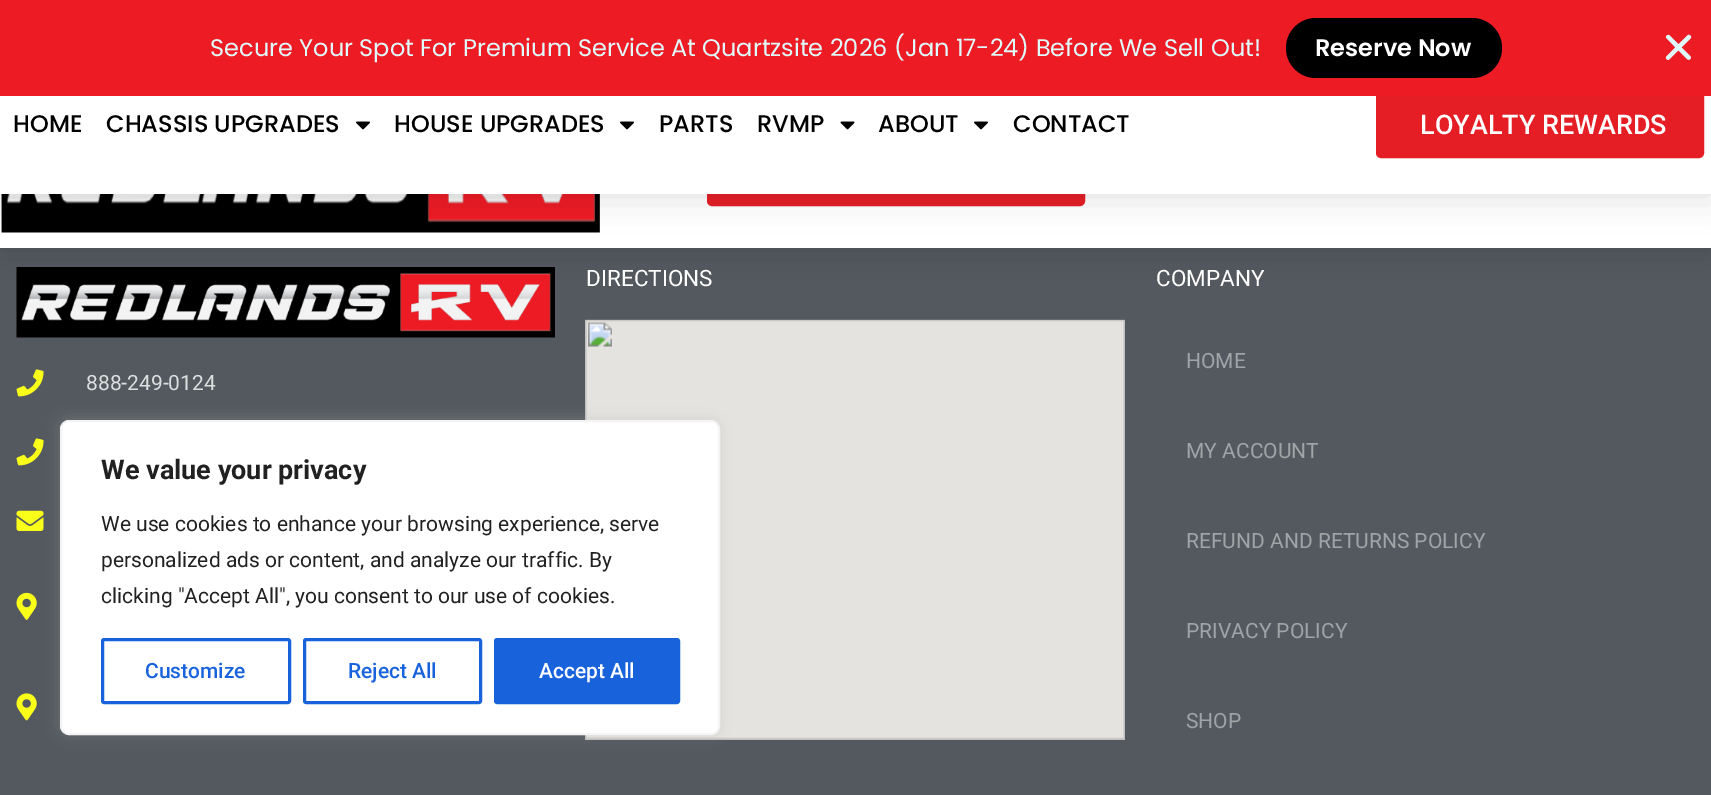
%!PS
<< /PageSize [1711 795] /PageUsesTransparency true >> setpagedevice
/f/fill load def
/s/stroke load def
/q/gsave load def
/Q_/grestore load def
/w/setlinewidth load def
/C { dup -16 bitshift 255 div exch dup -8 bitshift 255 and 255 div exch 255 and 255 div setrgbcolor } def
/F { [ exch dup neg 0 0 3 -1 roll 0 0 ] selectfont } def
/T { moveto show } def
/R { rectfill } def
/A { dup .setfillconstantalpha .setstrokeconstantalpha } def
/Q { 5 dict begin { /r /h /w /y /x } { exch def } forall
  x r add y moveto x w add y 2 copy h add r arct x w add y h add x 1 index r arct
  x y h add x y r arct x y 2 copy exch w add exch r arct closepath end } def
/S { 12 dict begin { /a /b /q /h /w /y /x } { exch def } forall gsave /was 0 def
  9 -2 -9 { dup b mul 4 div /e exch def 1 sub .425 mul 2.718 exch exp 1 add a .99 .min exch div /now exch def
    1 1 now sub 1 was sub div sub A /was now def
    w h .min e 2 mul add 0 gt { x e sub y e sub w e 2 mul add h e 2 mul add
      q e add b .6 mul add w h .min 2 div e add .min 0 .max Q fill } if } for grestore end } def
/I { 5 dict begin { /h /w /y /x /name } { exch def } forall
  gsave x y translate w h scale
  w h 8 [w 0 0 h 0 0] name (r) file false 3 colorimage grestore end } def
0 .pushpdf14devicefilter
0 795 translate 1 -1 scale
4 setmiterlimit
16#54595F C
0 0 1711 795 R
(5.rgb) 16 267 539 71 I
16#000000 C
0 96 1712 152 0 18 .15 S
16#FFFFFF C
0 194 1711 54 R
16#E51E26 C
708 141 376 64 4 Q q f Q_
2 w
s
(2.rgb) 1 194 599 39 I
16#000000 C
0 56 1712 138 0 18 .15 S
16#FFFFFF C
0 96 1711 98 R
16#E51E26 C
1377 93 326 64 4 Q q f Q_
s
16#ED1B24 C
0 0 1711 96 R
/Poppins-Regular 24 F
16#E0FBFC C
(Secure Your Spot For Premium Service At Quartzsite 2026 \(Jan 17-24\) Before We Sell Out!) 210 56 T
16#000000 C
1286 18 216 60 30 Q f
/Poppins-SemiBold 24 F
16#FFFFFF C
(Reserve Now) 1315 56 T
(1.rgb) 1665 34 27 26 I
/Poppins-Medium 24 F
16#000000 C
(HOME) 13 132 T
(CHASSIS UPGRADES) 106 132 T
(3.rgb) 356 121 14 9 I
(HOUSE UPGRADES) 394 132 T
(3.rgb) 620 121 14 9 I
(PARTS) 659 132 T
(RVMP) 757 132 T
(4.rgb) 840 121 15 9 I
(ABOUT) 878 132 T
(3.rgb) 974 121 14 9 I
(CONTACT) 1013 132 T
/Roboto-Medium 27 F
16#FFFFFF C
(LOYALTY REWARDS) 1420 134 T
(6.rgb) 16 369 28 28 I
/Roboto-Regular 21 F
16#DDDEDF C
(888-249-0124) 86 390 T
(6.rgb) 16 438 28 28 I
(7.rgb) 16 510 28 21 I
(8.rgb) 16 592 21 28 I
(9.rgb) 16 693 21 28 I
/Roboto-Regular 22.5 F
16#FFFFFF C
(DIRECTIONS) 586 286 T
(10.rgb) 585 319 540 421 I
(COMPANY) 1156 286 T
/Roboto-Regular 21 F
16#A1A4A7 C
(HOME) 1186 368 T
(MY ACCOUNT) 1186 458 T
(REFUND AND RETURNS POLICY) 1186 548 T
(PRIVACY POLICY) 1186 638 T
(SHOP) 1186 728 T
16#ACABAB C
60 419 660 315 9 7.5 .3 S
16#FFFFFF C
61 421 658 313 8 Q q f Q_
16#F4F4F4 C
s
/Roboto-Bold 27 F
16#212121 C
(We value your privacy) 101 479 T
/Roboto-Regular 21 F
(We use cookies to enhance your browsing experience, serve) 101 531 T
(personalized ads or content, and analyze our traffic. By) 101 567 T
(clicking "Accept All", you consent to our use of cookies.) 101 603 T
16#1863DC C
3 w
102.5 639.5 187 63 1.5 Q s
/Roboto-Medium 21 F
(Customize) 145 678 T
304.5 639.5 176 63 1.5 Q s
(Reject All) 348 678 T
495.5 639.5 183 63 1.5 Q q f Q_
s
16#FFFFFF C
(Accept All) 539 678 T
.poppdf14devicefilter showpage
